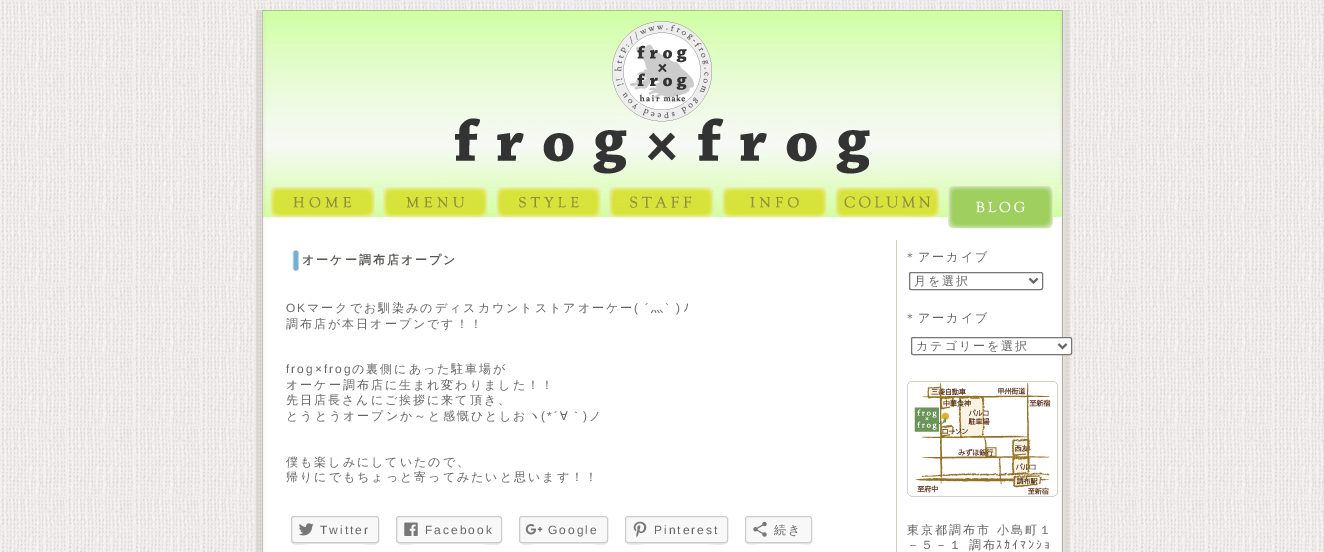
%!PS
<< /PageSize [1324 552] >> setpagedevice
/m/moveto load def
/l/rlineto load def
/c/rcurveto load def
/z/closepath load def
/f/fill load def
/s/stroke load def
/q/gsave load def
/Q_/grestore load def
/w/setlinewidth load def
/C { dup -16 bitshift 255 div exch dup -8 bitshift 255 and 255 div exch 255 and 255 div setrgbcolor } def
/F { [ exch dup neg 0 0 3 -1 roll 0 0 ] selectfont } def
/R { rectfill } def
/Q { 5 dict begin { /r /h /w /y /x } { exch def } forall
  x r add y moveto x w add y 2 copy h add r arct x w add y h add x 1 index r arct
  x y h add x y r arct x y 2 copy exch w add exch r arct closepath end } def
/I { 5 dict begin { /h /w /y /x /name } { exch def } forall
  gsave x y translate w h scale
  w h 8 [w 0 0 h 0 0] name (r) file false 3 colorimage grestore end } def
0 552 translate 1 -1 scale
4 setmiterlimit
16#FFFFFF C
0 0 1324 552 R
(1.rgb) 0 0 1324 552 I
(2.rgb) 254 10 817 542 I
(3.rgb) 263 10 799 207 I
(4.rgb) 612 21 100 98 I
(5.rgb) 455 119 415 55 I
(6.rgb) 270 185 105 33 I
(7.rgb) 383 185 105 33 I
(8.rgb) 496 185 105 33 I
(9.rgb) 609 185 105 33 I
(10.rgb) 722 185 105 33 I
(11.rgb) 835 185 105 33 I
(12.rgb) 948 185 105 44 I
16#CDD0BF C
896 240 1 312 R
(13.rgb) 292 250 7 21 I
/WenQuanYiZenHei-Bold 12 F
16#585753 C
302 264 m 2 0 (オーケー調布店オープン) ashow
/LiberationSans-Regular 12 F
16#666666 C
286 312 m 2 0 (OK) ashow
/WenQuanYiZenHei-Medium 12 F
307 312 m 2 0 (マークでお馴染みのディスカウントストアオーケー) ashow
/LiberationSans-Regular 12 F
634 312 m 2 0 (\( ´) ashow
/WenQuanYiZenHei-Medium 12 F
651 312 m 2 0 (灬) ashow
/LiberationSans-Regular 12 F
665 312 m 2 0 (` \)) ashow
/IPAPGothic-Regular 12 F
683 312 m 2 0 (ﾉ) ashow
/WenQuanYiZenHei-Medium 12 F
286 328 m 2 0 (調布店が本日オープンです！！) ashow
/LiberationSans-Regular 12 F
286 373 m 2 0 (frog×frog) ashow
/WenQuanYiZenHei-Medium 12 F
352 373 m 2 0 (の裏側にあった駐車場が) ashow
286 389 m 2 0 (オーケー調布店に生まれ変わりました！！) ashow
286 404 m 2 0 (先日店長さんにご挨拶に来て頂き、) ashow
286 420 m 2 0 (とうとうオープンか～と感慨ひとしおヽ) ashow
/LiberationSans-Regular 12 F
541 420 m 2 0 (\(*´) ashow
/WenQuanYiZenHei-Medium 12 F
560 420 m 2 0 (∀｀) ashow
/LiberationSans-Regular 12 F
583 420 m 2 0 (\)) ashow
/WenQuanYiZenHei-Medium 12 F
589 420 m 2 0 (ノ) ashow
286 466 m 2 0 (僕も楽しみにしていたので、) ashow
286 481 m 2 0 (帰りにでもちょっと寄ってみたいと思います！！) ashow
16#EBEBEB C
291 540 m 0 8 13 4 17 4 c 54 0 l 4 0 17 4 17 -4 c 0 2 -1 3 -3 3 c -82 0 l -2 0 -3 -1 -3 -3 c z f
16#F8F8F8 C
291.5 516.5 87 26 2.5 Q q f Q_
16#CCCCCC C
s
(14.rgb) 299 523 15 13 I
/LiberationSans-Regular 12 F
16#666666 C
320 534 m 2 0 (Twitter) ashow
16#EBEBEB C
396 540 m 0 8 17 4 20 4 c 66 0 l 3 0 20 4 20 -4 c 0 2 -1 3 -3 3 c -100 0 l -2 0 -3 -1 -3 -3 c z f
16#F8F8F8 C
396.5 516.5 105 26 2.5 Q q f Q_
16#CCCCCC C
s
(15.rgb) 404 522 14 14 I
16#666666 C
425 534 m 2 0 (Facebook) ashow
16#EBEBEB C
519 540 m 0 8 13 4 17 4 c 55 0 l 4 0 17 4 17 -4 c 0 2 -1 3 -3 3 c -83 0 l -2 0 -3 -1 -3 -3 c z f
16#F8F8F8 C
519.5 516.5 88 26 2.5 Q q f Q_
16#CCCCCC C
s
(16.rgb) 525 524 18 11 I
16#666666 C
548 534 m 2 0 (Google) ashow
16#EBEBEB C
625 540 m 0 8 16 4 19 4 c 65 0 l 3 0 19 4 19 -4 c 0 2 -1 3 -3 3 c -97 0 l -2 0 -3 -1 -3 -3 c z f
16#F8F8F8 C
625.5 516.5 102 26 2.5 Q q f Q_
16#CCCCCC C
s
(17.rgb) 633 521 14 17 I
16#666666 C
654 534 m 2 0 (Pinterest) ashow
16#EBEBEB C
745 540 m 0 7 9 4 13 4 c 41 0 l 4 0 13 3 13 -4 c 0 2 -1 3 -3 3 c -61 0 l -2 0 -3 -1 -3 -3 c z f
16#F8F8F8 C
745.5 516.5 66 26 2.5 Q q f Q_
16#CCCCCC C
s
(18.rgb) 753 521 14 16 I
/WenQuanYiZenHei-Medium 12 F
16#666666 C
774 534 m 2 0 (続き) ashow
904 261 m 2 0 (＊アーカイブ) ashow
16#767676 C
909.5 272.5 133 17 1.5 Q s
16#666666 C
2 w
1029.5 278.5 m 4 4 l 4 -4 l s
914 285 m 2 0 (月を選択) ashow
904 322 m 2 0 (＊アーカイブ) ashow
16#FFFFFF C
911.5 337.5 160 17 1.5 Q q f Q_
16#767676 C
1 w
s
16#666666 C
2 w
1058.5 344 m 4 4 l 4 -4 l s
916 350 m 2 0 (カテゴリーを選択) ashow
(19.rgb) 907 381 151 116 I
907 534 m 2 0 (東京都調布市 小島町１) ashow
907 549 m 2 0 (－５－１ 調布) ashow
/IPAPGothic-Regular 12 F
996 549 m 2 0 (ｽｶｲﾏﾝｼｮ) ashow
showpage
